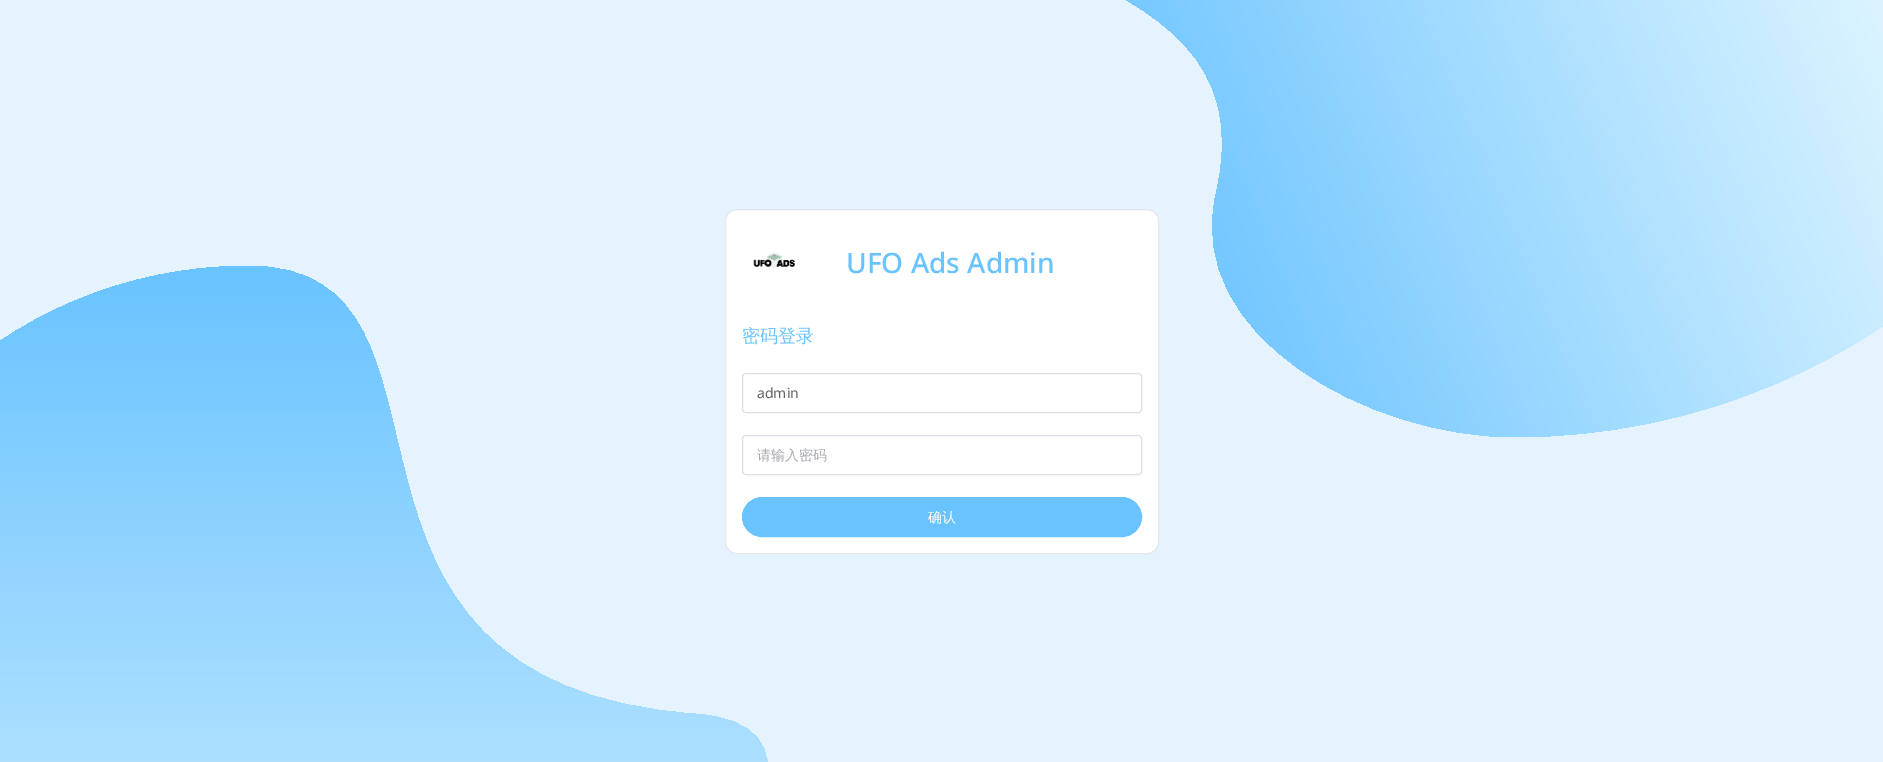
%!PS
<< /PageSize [1883 762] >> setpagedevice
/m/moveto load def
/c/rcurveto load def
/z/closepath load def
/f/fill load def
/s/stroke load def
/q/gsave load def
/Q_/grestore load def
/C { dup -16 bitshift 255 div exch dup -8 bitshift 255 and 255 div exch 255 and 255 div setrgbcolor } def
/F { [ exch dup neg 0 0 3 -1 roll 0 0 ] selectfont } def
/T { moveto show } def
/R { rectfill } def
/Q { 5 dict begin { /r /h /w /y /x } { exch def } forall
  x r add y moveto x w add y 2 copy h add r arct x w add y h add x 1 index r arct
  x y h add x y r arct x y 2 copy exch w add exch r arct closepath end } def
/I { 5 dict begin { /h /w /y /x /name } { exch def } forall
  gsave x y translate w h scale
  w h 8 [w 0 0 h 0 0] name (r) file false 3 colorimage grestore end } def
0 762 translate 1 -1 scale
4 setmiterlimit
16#E5F3FF C
0 0 1883 762 R
q 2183 -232 m 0 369 -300 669 -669 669 c -144 0 -331 -101 -298 -243 c 64 -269 -370 -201 -370 -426 c 0 -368 300 -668 668 -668 c 369 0 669 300 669 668 c z eoclip newpath
<< /ShadingType 2 /ColorSpace /DeviceRGB /Coords [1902 -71 1127 250] /Extend [true true] /Function << /FunctionType 2 /Domain [0 1] /C0 [.89 .969 1] /C1 [.412 .765 1] /N 1 >> >> shfill Q_
q 696 714 m 247 18 -201 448 -448 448 c -247 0 -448 -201 -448 -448 c 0 -247 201 -448 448 -448 c 247 0 27 418 448 448 c z eoclip newpath
<< /ShadingType 2 /ColorSpace /DeviceRGB /Coords [284 266 284 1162] /Extend [true true] /Function << /FunctionType 2 /Domain [0 1] /C0 [.412 .765 1] /C1 [.89 .969 1] /N 1 >> >> shfill Q_
16#FFFFFF C
725.5 209.5 433 344 11.5 Q q f Q_
16#E4E7ED C
s
(1.rgb) 753 252 43 16 I
/NotoSans-Medium 28 F
16#69C3FF C
(UFO Ads Admin) 846 273 T
/WenQuanYiZenHei-Medium 18 F
(密码登录) 742 342 T
16#DCDFE6 C
742.5 373.5 399 39 3.5 Q s
/NotoSans-Regular 14 F
16#606266 C
(admin) 757 398 T
16#DCDFE6 C
742.5 435.5 399 39 3.5 Q s
/WenQuanYiZenHei-Medium 14 F
16#A8ABB2 C
(请输入密码) 757 460 T
16#69C3FF C
742.5 497.5 399 39 19.5 Q q f Q_
s
16#FFFFFF C
(确认) 928 522 T
showpage
